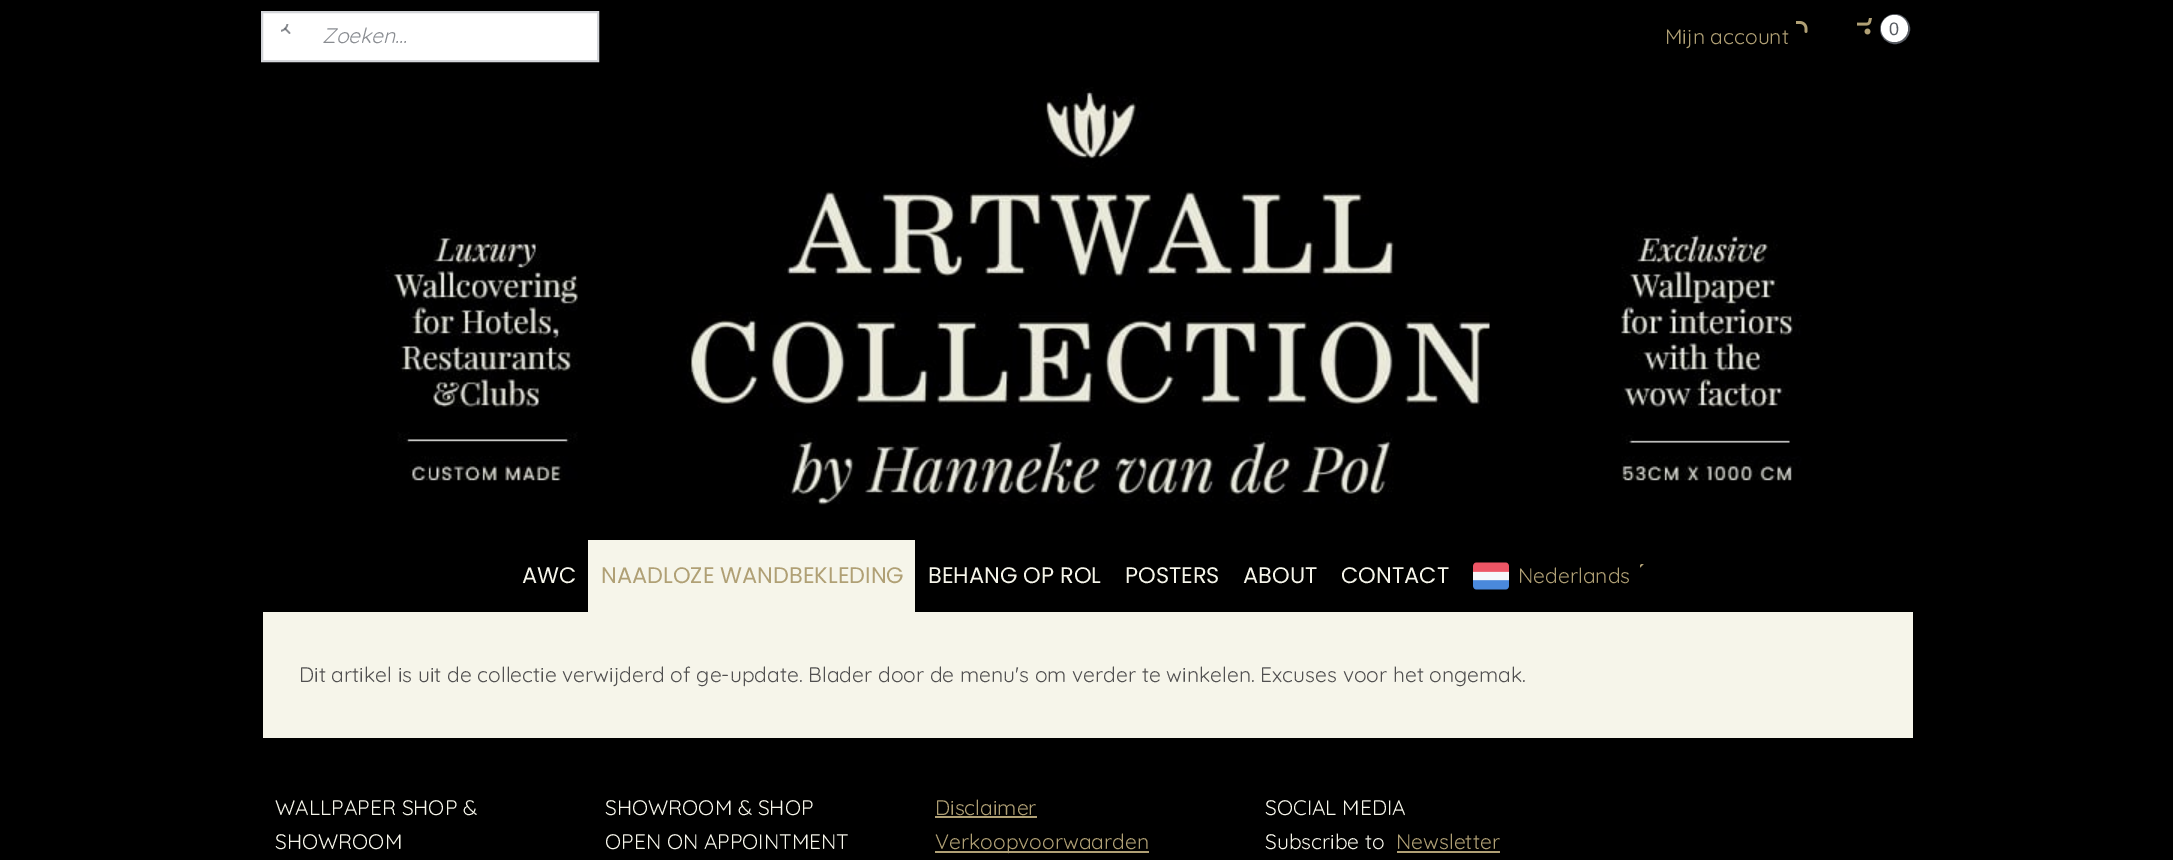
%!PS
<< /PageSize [2173 860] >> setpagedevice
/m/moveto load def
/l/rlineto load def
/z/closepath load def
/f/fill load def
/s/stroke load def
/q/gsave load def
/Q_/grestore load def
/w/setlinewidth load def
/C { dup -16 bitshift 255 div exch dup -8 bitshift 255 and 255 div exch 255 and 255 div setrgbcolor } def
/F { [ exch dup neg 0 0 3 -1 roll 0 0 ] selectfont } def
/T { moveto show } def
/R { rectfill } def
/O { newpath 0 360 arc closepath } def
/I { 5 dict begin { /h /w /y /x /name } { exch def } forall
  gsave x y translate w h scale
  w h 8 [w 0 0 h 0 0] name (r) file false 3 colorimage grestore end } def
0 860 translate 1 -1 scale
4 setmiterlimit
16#000000 C
0 0 2173 860 R
16#FFFFFF C
262 12 m 336 0 l 0 49 l -336 0 l z q f Q_
16#D3D5D9 C
2 w
s
(1.rgb) 281 24 10 10 I
/Quicksand-Italic 21 F
16#898C91 C
(Zoeken...) 322 43 T
(2.rgb) 1796 21 12 12 I
/Quicksand-Regular 21 F
16#B0A075 C
(Mijn account) 1665 44 T
(3.rgb) 1857 18 15 17 I
16#575B62 C
1895 29 14 O s
16#FFFFFF C
1894.5 28.5 13.5 O f
/LiberationSans-Regular 18 F
16#575B62 C
(0) 1889 35 T
(4.rgb) 385 87 1417 418 I
/Poppins-Regular 22.5 F
16#F6F5EA C
(AWC) 522 583 T
588 540 327 72 R
16#B0A075 C
(NAADLOZE WANDBEKLEDING) 601 583 T
16#F6F5EA C
(BEHANG OP ROL) 928 583 T
(POSTERS) 1125 583 T
(ABOUT) 1243 583 T
(CONTACT) 1341 583 T
(5.rgb) 1473 562 36 28 I
(6.rgb) 1640 564 4 4 I
/Quicksand-Regular 21 F
16#B0A075 C
(Nederlands) 1518 583 T
16#F6F5EA C
263 612 1650 126 R
16#515050 C
(Dit artikel is uit de collectie verwijderd of ge-update. Blader door de menu's om verder te winkelen. Excuses voor het ongemak.) 299 682 T
16#F6F5EA C
(WALLPAPER SHOP &) 275 815 T
(SHOWROOM) 275 849 T
(SHOWROOM & SHOP) 605 815 T
(OPEN ON APPOINTMENT) 605 849 T
16#B0A075 C
(Disclaimer) 935 815 T
935 816 102 2 R
935 851 214 2 R
(Verkoopvoorwaarden) 935 849 T
16#F6F5EA C
(SOCIAL MEDIA) 1265 815 T
(Subscribe to) 1265 849 T
16#B0A075 C
(Newsletter) 1396 849 T
1397 851 103 2 R
showpage
